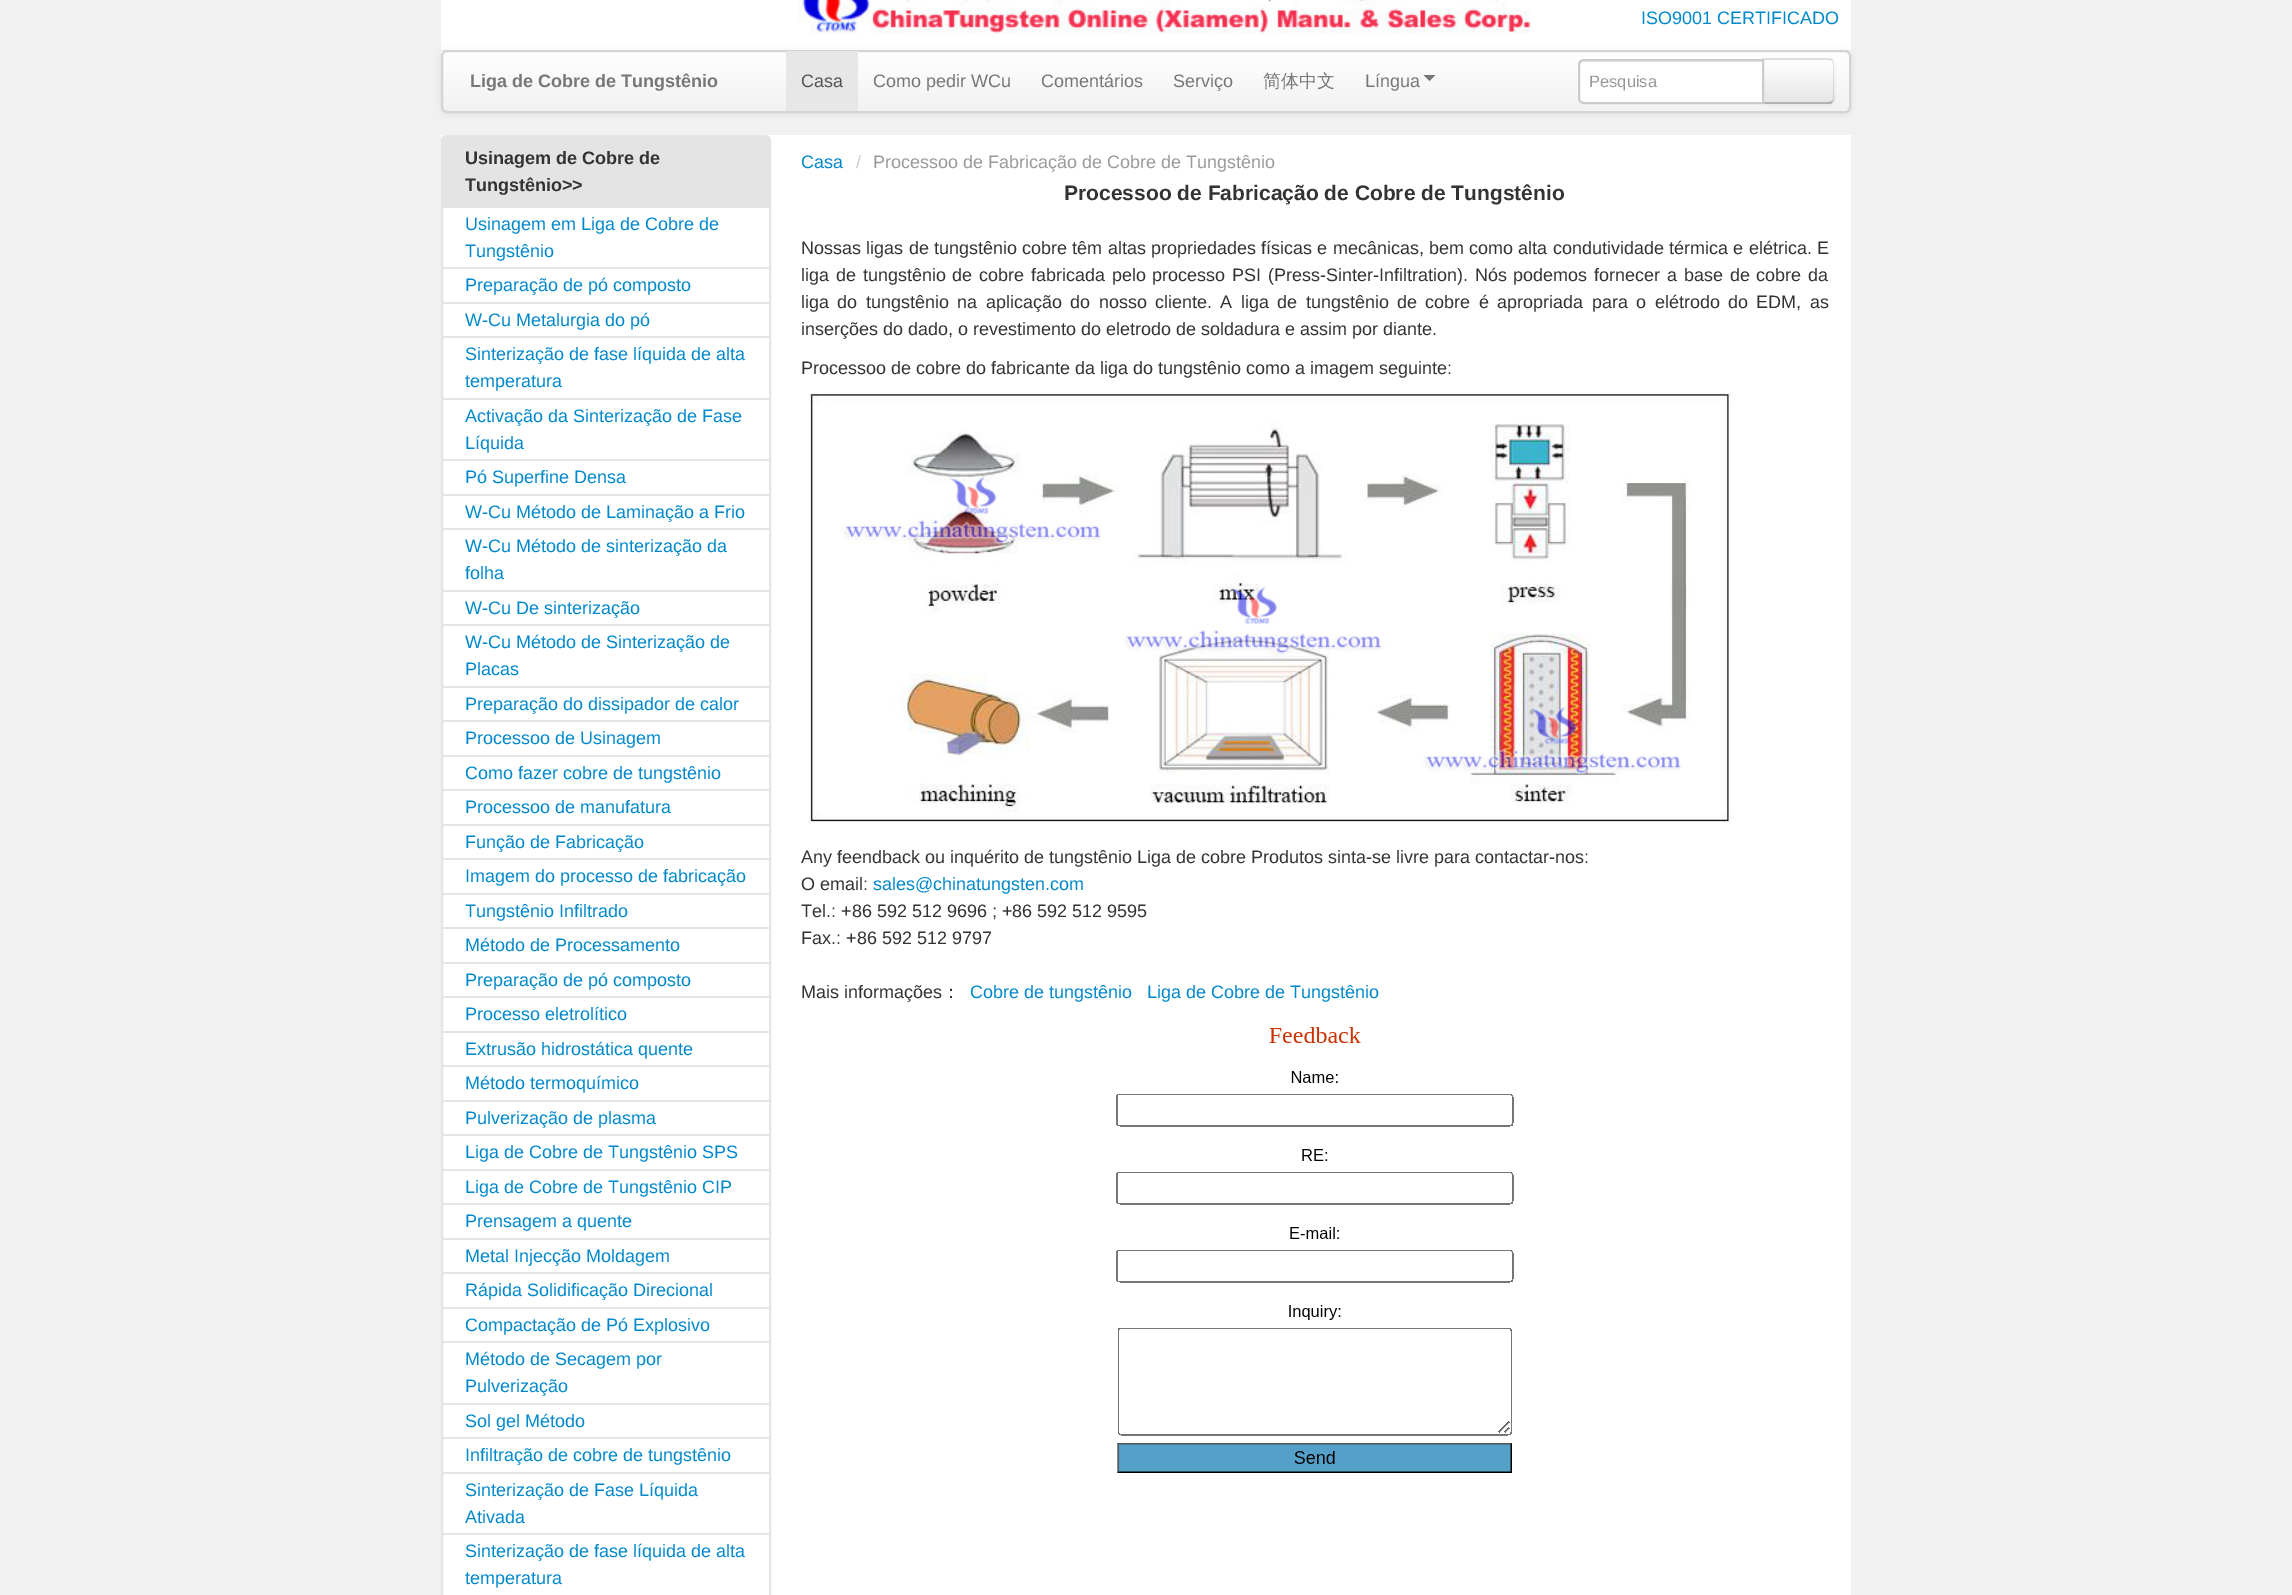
%!PS
<< /PageSize [2292 1595] /PageUsesTransparency true >> setpagedevice
/m/moveto load def
/l/rlineto load def
/c/rcurveto load def
/z/closepath load def
/f/fill load def
/s/stroke load def
/q/gsave load def
/Q_/grestore load def
/w/setlinewidth load def
/C { dup -16 bitshift 255 div exch dup -8 bitshift 255 and 255 div exch 255 and 255 div setrgbcolor } def
/F { [ exch dup neg 0 0 3 -1 roll 0 0 ] selectfont } def
/T { moveto show } def
/R { rectfill } def
/A { dup .setfillconstantalpha .setstrokeconstantalpha } def
/Q { 5 dict begin { /r /h /w /y /x } { exch def } forall
  x r add y moveto x w add y 2 copy h add r arct x w add y h add x 1 index r arct
  x y h add x y r arct x y 2 copy exch w add exch r arct closepath end } def
/S { 12 dict begin { /a /b /q /h /w /y /x } { exch def } forall gsave /was 0 def
  9 -2 -9 { dup b mul 4 div /e exch def 1 sub .425 mul 2.718 exch exp 1 add a .99 .min exch div /now exch def
    1 1 now sub 1 was sub div sub A /was now def
    w h .min e 2 mul add 0 gt { x e sub y e sub w e 2 mul add h e 2 mul add
      q e add b .6 mul add w h .min 2 div e add .min 0 .max Q fill } if } for grestore end } def
/I { 5 dict begin { /h /w /y /x /name } { exch def } forall
  gsave x y translate w h scale
  w h 8 [w 0 0 h 0 0] name (r) file false 3 colorimage grestore end } def
0 .pushpdf14devicefilter
0 1595 translate 1 -1 scale
4 setmiterlimit
16#F1F1F1 C
0 0 2292 1595 R
16#FFFFFF C
441 0 1410 50 R
(1.rgb) 798 0 733 35 I
/LiberationSans-Regular 18 F
16#0088CC C
(ISO9001 CERTIFICADO) 1641 24 T
16#000000 C
441 51 1410 63 6 3 .07 S
q
441 50 1410 63 6 Q clip newpath
q 441 51 m 1410 0 l 0 60 l -1410 0 l z clip newpath
<< /ShadingType 2 /ColorSpace /DeviceRGB /Coords [1146 51 1146 111] /Extend [true true] /Function << /FunctionType 2 /Domain [0 1] /C0 [1 1 1] /C1 [.949 .949 .949] /N 1 >> >> shfill Q_
Q_
16#D4D4D4 C
2 w
442 51 1408 61 5 Q s
/LiberationSans-Bold 18 F
16#777777 C
(Liga de Cobre de Tungstênio) 470 87 T
16#E7E7E7 C
786 51 72 60 R
/LiberationSans-Regular 18 F
16#555555 C
(Casa) 801 87 T
16#777777 C
(Como pedir WCu) 873 87 T
(Comentários) 1041 87 T
(Serviço) 1173 87 T
/WenQuanYiZenHei-Medium 18 F
(简体中文) 1263 87 T
/LiberationSans-Regular 18 F
(Língua) 1365 87 T
1423.5 75 m 12 0 l -6 6 l z f
16#000000 C
1763 60 72 45 6 1.5 .05 S
16#F5F5F5 C
1763 59 m 66 0 l 3.5 0 6 2.5 6 6 c 0 33 l 0 3.5 -2.5 6 -6 6 c -66 0 l z f
q
1763 59 m 66 0 l 3.5 0 6 2.5 6 6 c 0 33 l 0 3.5 -2.5 6 -6 6 c -66 0 l z clip newpath
q 1764 60 m 71 0 l 0 42 l -71 0 l z clip newpath
<< /ShadingType 2 /ColorSpace /DeviceRGB /Coords [1799 60 1799 102] /Extend [true true] /Function << /FunctionType 2 /Domain [0 1] /C0 [1 1 1] /C1 [.902 .902 .902] /N 1 >> >> shfill Q_
Q_
0.1 A
16#000000 C
1764 60 m -2 -2 l 69 0 l 2 2 l -1 1 l -1 0 -2 -1 -4 -1 c z f
1833 60 m 1 1 1 3 1 4 c 0 34 l 0 1 0 3 -1 4 c -1 -1 l 1 -1 1 -2 1 -3 c 0 -34 l 0 -1 0 -2 -1 -3 c z f
1 A
16#B3B3B3 C
1833 102 m -2 2 l -69 0 l 2 -2 l 64 0 l 2 0 3 -1 4 -1 c z f
0.1 A
16#000000 C
1762 104 m 2 -2 l 0 -42 l -2 -2 l z f
1 A
16#FFFFFF C
1584 59 m 180 0 l 0 45 l -180 0 l -3.5 0 -6 -2.5 -6 -6 c 0 -33 l 0 -3.5 2.5 -6 6 -6 c z f
16#ECECEC C
1584 62 m 178 0 l 0 40 l 1 0 l 0 -42 l -178 0 l -3 0 -5 3 -5 6 c 0 -2 2 -4 4 -4 c z f
16#CCCCCC C
1584 60 m 179 0 l 0 43 l -179 0 l -3 0 -5 -2 -5 -5 c 0 -33 l 0 -3 2 -5 5 -5 c z s
/LiberationSans-Regular 16.5 F
16#999999 C
(Pesquisa) 1589 87 T
16#FFFFFF C
441 135 1410 1460 R
16#E5E5E5 C
442 136 328 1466 5 Q s
16#E4E4E4 C
443 137 327 69 R
/LiberationSans-Bold 18 F
16#333333 C
(Usinagem de Cobre de) 465 164 T
(Tungstênio>>) 465 191 T
16#E5E5E5 C
443 206 327 2 R
/LiberationSans-Regular 18 F
16#0088CC C
(Usinagem em Liga de Cobre de) 465 230 T
(Tungstênio) 465 257 T
16#E5E5E5 C
443 267 327 2 R
16#0088CC C
(Preparação de pó composto) 465 291 T
16#E5E5E5 C
443 302 327 2 R
16#0088CC C
(W-Cu Metalurgia do pó) 465 326 T
16#E5E5E5 C
443 336 327 2 R
16#0088CC C
(Sinterização de fase líquida de alta) 465 360 T
(temperatura) 465 387 T
16#E5E5E5 C
443 398 327 2 R
16#0088CC C
(Activação da Sinterização de Fase) 465 422 T
(Líquida) 465 449 T
16#E5E5E5 C
443 459 327 2 R
16#0088CC C
(Pó Superfine Densa) 465 483 T
16#E5E5E5 C
443 494 327 2 R
16#0088CC C
(W-Cu Método de Laminação a Frio) 465 518 T
16#E5E5E5 C
443 528 327 2 R
16#0088CC C
(W-Cu Método de sinterização da) 465 552 T
(folha) 465 579 T
16#E5E5E5 C
443 590 327 2 R
16#0088CC C
(W-Cu De sinterização) 465 614 T
16#E5E5E5 C
443 624 327 2 R
16#0088CC C
(W-Cu Método de Sinterização de) 465 648 T
(Placas) 465 675 T
16#E5E5E5 C
443 686 327 2 R
16#0088CC C
(Preparação do dissipador de calor) 465 710 T
16#E5E5E5 C
443 720 327 2 R
16#0088CC C
(Processoo de Usinagem) 465 744 T
16#E5E5E5 C
443 755 327 2 R
16#0088CC C
(Como fazer cobre de tungstênio) 465 779 T
16#E5E5E5 C
443 789 327 2 R
16#0088CC C
(Processoo de manufatura) 465 813 T
16#E5E5E5 C
443 824 327 2 R
16#0088CC C
(Função de Fabricação) 465 848 T
16#E5E5E5 C
443 858 327 2 R
16#0088CC C
(Imagem do processo de fabricação) 465 882 T
16#E5E5E5 C
443 893 327 2 R
16#0088CC C
(Tungstênio Infiltrado) 465 917 T
16#E5E5E5 C
443 927 327 2 R
16#0088CC C
(Método de Processamento) 465 951 T
16#E5E5E5 C
443 962 327 2 R
16#0088CC C
(Preparação de pó composto) 465 986 T
16#E5E5E5 C
443 996 327 2 R
16#0088CC C
(Processo eletrolítico) 465 1020 T
16#E5E5E5 C
443 1031 327 2 R
16#0088CC C
(Extrusão hidrostática quente) 465 1055 T
16#E5E5E5 C
443 1065 327 2 R
16#0088CC C
(Método termoquímico) 465 1089 T
16#E5E5E5 C
443 1100 327 2 R
16#0088CC C
(Pulverização de plasma) 465 1124 T
16#E5E5E5 C
443 1134 327 2 R
16#0088CC C
(Liga de Cobre de Tungstênio SPS) 465 1158 T
16#E5E5E5 C
443 1169 327 2 R
16#0088CC C
(Liga de Cobre de Tungstênio CIP) 465 1193 T
16#E5E5E5 C
443 1203 327 2 R
16#0088CC C
(Prensagem a quente) 465 1227 T
16#E5E5E5 C
443 1238 327 2 R
16#0088CC C
(Metal Injecção Moldagem) 465 1262 T
16#E5E5E5 C
443 1272 327 2 R
16#0088CC C
(Rápida Solidificação Direcional) 465 1296 T
16#E5E5E5 C
443 1307 327 2 R
16#0088CC C
(Compactação de Pó Explosivo) 465 1331 T
16#E5E5E5 C
443 1341 327 2 R
16#0088CC C
(Método de Secagem por) 465 1365 T
(Pulverização) 465 1392 T
16#E5E5E5 C
443 1403 327 2 R
16#0088CC C
(Sol gel Método) 465 1427 T
16#E5E5E5 C
443 1437 327 2 R
16#0088CC C
(Infiltração de cobre de tungstênio) 465 1461 T
16#E5E5E5 C
443 1472 327 2 R
16#0088CC C
(Sinterização de Fase Líquida) 465 1496 T
(Ativada) 465 1523 T
16#E5E5E5 C
443 1533 327 2 R
16#0088CC C
(Sinterização de fase líquida de alta) 465 1557 T
(temperatura) 465 1584 T
(Casa) 801 168 T
16#CCCCCC C
(/) 856 168 T
16#999999 C
(Processoo de Fabricação de Cobre de Tungstênio) 873 168 T
/LiberationSans-Bold 21 F
16#333333 C
(Processoo de Fabricação de Cobre de Tungstênio) 1064 200 T
/LiberationSans-Regular 18 F
801 254 m .25 0 32 (Nossas ligas de tungstênio cobre têm altas propriedades físicas e mecânicas, bem como alta condutividade térmica e elétrica. E) widthshow
801 281 m 1.75 0 32 (liga de tungstênio de cobre fabricada pelo processo PSI \(Press-Sinter-Infiltration\). Nós podemos fornecer a base de cobre da) widthshow
801 308 m 3.4 0 32 (liga do tungstênio na aplicação do nosso cliente. A liga de tungstênio de cobre é apropriada para o elétrodo do EDM, as) widthshow
(inserções do dado, o revestimento do eletrodo de soldadura e assim por diante.) 801 335 T
(Processoo de cobre do fabricante da liga do tungstênio como a imagem seguinte:) 801 374 T
(2.rgb) 808 393 923 431 I
(Any feendback ou inquérito de tungstênio Liga de cobre Produtos sinta-se livre para contactar-nos:) 801 863 T
(O email:) 801 890 T
16#0088CC C
(sales@chinatungsten.com) 873 890 T
16#333333 C
(Tel.: +86 592 512 9696 ; +86 592 512 9595) 801 917 T
(Fax.: +86 592 512 9797) 801 944 T
(Mais informações) 801 998 T
/WenQuanYiZenHei-Medium 18 F
(：) 942 998 T
/LiberationSans-Regular 18 F
16#0088CC C
(Cobre de tungstênio) 970 998 T
(Liga de Cobre de Tungstênio) 1147 998 T
(3.rgb) 1116 1027 398 446 I
.poppdf14devicefilter showpage
